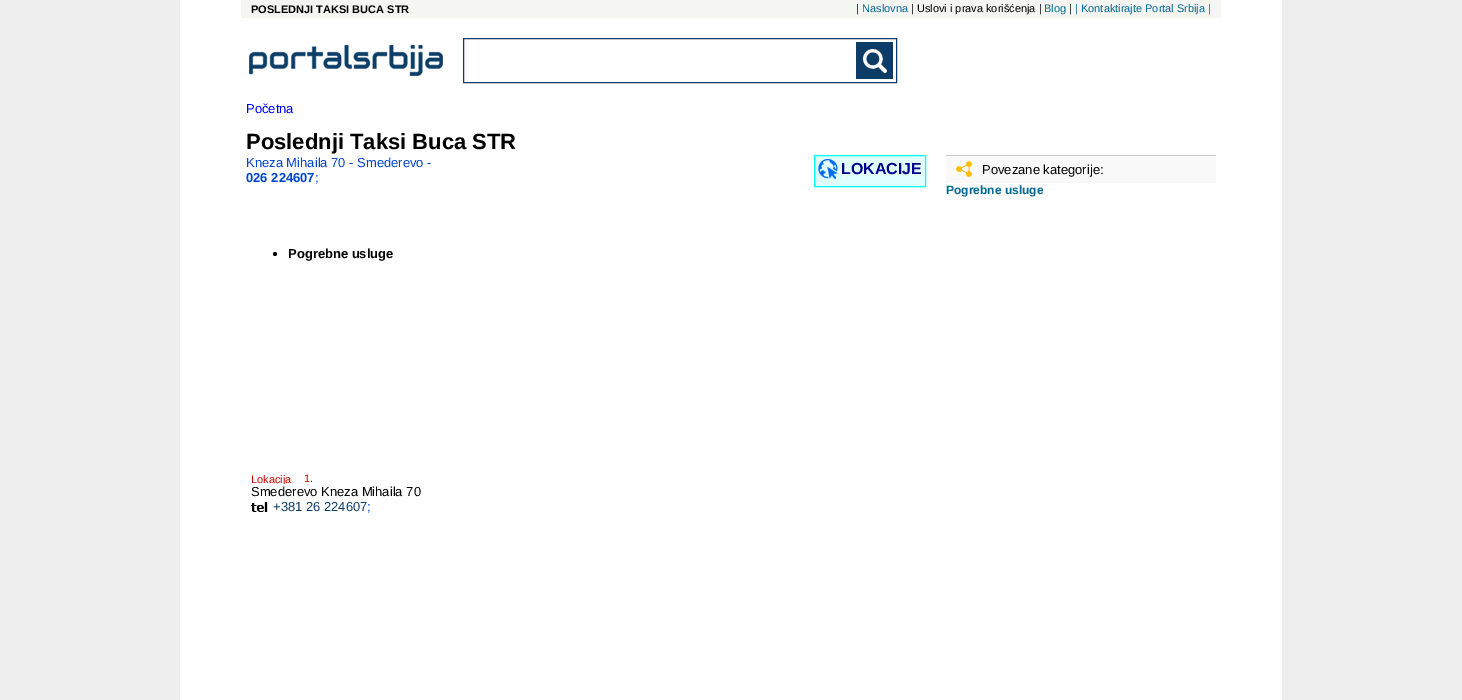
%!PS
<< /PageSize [1462 700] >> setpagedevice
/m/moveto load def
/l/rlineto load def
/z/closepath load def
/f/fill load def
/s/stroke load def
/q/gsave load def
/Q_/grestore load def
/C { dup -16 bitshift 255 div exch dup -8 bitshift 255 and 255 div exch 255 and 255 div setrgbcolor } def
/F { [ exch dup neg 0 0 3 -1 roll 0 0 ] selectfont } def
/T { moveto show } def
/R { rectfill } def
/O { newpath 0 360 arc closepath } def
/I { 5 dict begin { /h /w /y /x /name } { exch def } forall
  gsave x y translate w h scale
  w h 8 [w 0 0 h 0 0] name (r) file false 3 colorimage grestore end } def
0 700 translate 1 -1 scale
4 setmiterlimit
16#FFFFFF C
0 0 1462 700 R
16#F5F5F1 C
241 0 980 18 R
/LiberationSans-Bold 11 F
16#000000 C
(POSLEDNJI TAKSI BUCA STR) 251 13 T
/LiberationSans-Regular 11 F
(|) 856 12 T
16#016A94 C
(Naslovna) 862 12 T
16#000000 C
(| Uslovi i prava korišćenja |) 911 12 T
16#016A94 C
(Blog) 1044 12 T
16#000000 C
(|) 1069 12 T
16#016A94 C
(| Kontaktirajte Portal Srbija |) 1075 12 T
16#EEEEEE C
0 0 180 700 R
(1.rgb) 249 45 194 31 I
16#0D3C66 C
463.5 38.5 433 44 rectstroke
856 42 37 37 R
(2.rgb) 863 49 24 24 I
16#EEEEEE C
1282 0 180 700 R
/LiberationSans-Regular 13 F
16#0000FF C
(Početna) 246 113 T
/LiberationSans-Bold 22 F
16#000000 C
(Poslednji Taksi Buca STR) 246 149 T
/LiberationSans-Regular 13 F
16#0044CC C
(Kneza Mihaila 70 - Smederevo -) 246 167 T
/LiberationSans-Bold 13 F
(026 224607) 246 182 T
/LiberationSans-Regular 13 F
(;) 315 182 T
16#E0FFFF C
814.5 155.5 m 111 0 l 0 31 l -111 0 l z q f Q_
16#00FFFF C
s
(3.rgb) 818 159 20 20 I
/LiberationSans-Bold 16 F
16#00008B C
(LOKACIJE) 841 174 T
16#000000 C
275 254 2 O f
/LiberationSans-Bold 13 F
(Pogrebne usluge) 288 258 T
/LiberationSans-Regular 11 F
16#CC0000 C
(Lokacija) 251 483 T
(1.) 304 482 T
/LiberationSans-Regular 13 F
16#000000 C
(Smederevo Kneza Mihaila 70) 251 496 T
16#FFFFFF C
282 484 3 2 R
(4.rgb) 251 502 17 10 I
16#0D3C66 C
(+381 26 224607) 273 511 T
16#0044CC C
(;) 367 511 T
16#CBCBCB C
946 155 270 1 R
16#F9F9F9 C
946 156 270 27 R
(5.rgb) 956 161 16 16 I
16#000000 C
(Povezane kategorije:) 982 174 T
/LiberationSans-Bold 12 F
16#016A94 C
(Pogrebne usluge) 946 194 T
showpage
